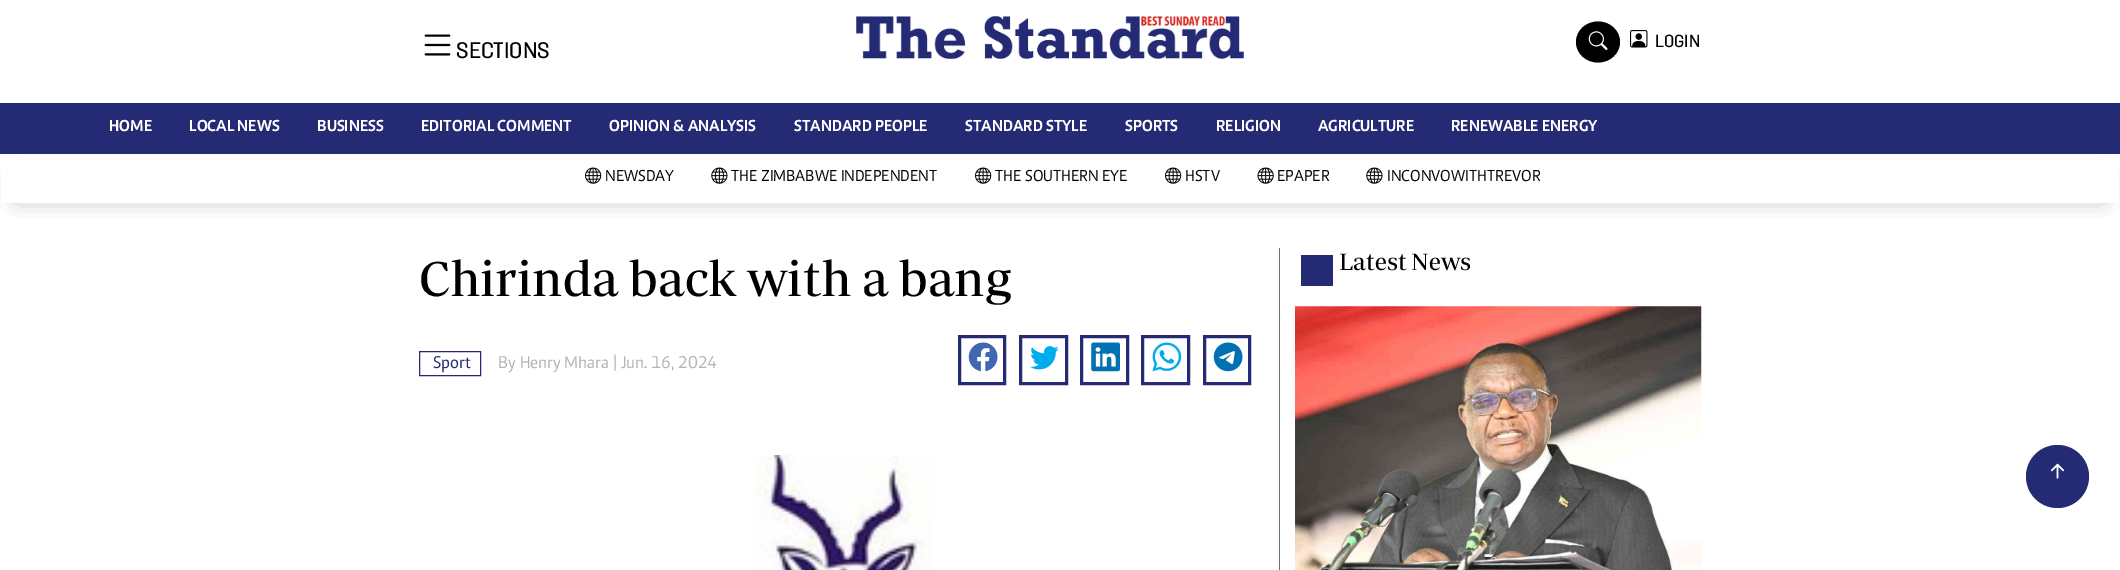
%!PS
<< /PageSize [2120 570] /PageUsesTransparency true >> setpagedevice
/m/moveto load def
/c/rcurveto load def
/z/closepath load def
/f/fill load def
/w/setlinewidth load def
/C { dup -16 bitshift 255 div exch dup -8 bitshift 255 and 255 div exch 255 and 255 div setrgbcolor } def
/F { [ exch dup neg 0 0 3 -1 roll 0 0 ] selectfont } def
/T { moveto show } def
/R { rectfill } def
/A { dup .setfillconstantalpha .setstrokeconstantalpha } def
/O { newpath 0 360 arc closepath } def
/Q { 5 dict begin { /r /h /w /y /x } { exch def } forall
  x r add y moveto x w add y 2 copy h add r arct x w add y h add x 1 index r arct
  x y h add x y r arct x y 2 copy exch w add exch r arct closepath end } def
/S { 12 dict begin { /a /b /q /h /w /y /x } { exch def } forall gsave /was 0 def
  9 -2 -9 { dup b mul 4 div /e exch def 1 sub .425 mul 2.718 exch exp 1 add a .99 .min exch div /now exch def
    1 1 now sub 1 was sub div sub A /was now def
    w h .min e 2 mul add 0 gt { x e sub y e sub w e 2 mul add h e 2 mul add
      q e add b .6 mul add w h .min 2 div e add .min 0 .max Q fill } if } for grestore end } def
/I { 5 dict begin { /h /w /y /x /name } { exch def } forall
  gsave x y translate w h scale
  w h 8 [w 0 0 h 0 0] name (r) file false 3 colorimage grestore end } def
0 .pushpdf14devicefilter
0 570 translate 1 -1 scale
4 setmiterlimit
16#FFFFFF C
0 0 2120 570 R
(1.rgb) 424 34 27 22 I
/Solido-Medium 22.5 F
16#000000 C
(SECTIONS) 456 58 T
(2.rgb) 856 16 388 43 I
1598 21.5 m 12 0 22 9 22 20.5 c 0 11.5 -10 20.5 -22 20.5 c -12 0 -22 -9 -22 -20.5 c 0 -11.5 10 -20.5 22 -20.5 c z f
(3.rgb) 1588 31 20 19 I
(4.rgb) 1630 30 18 18 I
/Solido-Medium 17.5 F
(LOGIN) 1655 47 T
19 183 2082 11 0 11 .56 S
16#242A74 C
0 103 2120 51 R
/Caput-Bold 16.25 F
16#FFFFFF C
(HOME) 109 131 T
(LOCAL NEWS) 189 131 T
(BUSINESS) 317 131 T
(EDITORIAL COMMENT) 421 131 T
(OPINION & ANALYSIS) 609 131 T
(STANDARD PEOPLE) 794 131 T
(STANDARD STYLE) 965 131 T
(SPORTS) 1125 131 T
(RELIGION) 1216 131 T
(AGRICULTURE) 1318 131 T
(RENEWABLE ENERGY) 1451 131 T
1 160 2118 43 R
(5.rgb) 585 167 17 17 I
/Caput-Regular 16.25 F
16#000000 C
(NEWSDAY) 605 181 T
(6.rgb) 711 167 17 17 I
(THE ZIMBABWE INDEPENDENT) 731 181 T
(5.rgb) 975 167 17 17 I
(THE SOUTHERN EYE) 995 181 T
(5.rgb) 1165 167 17 17 I
(HSTV) 1185 181 T
(7.rgb) 1257 167 17 17 I
(EPAPER) 1277 181 T
(6.rgb) 1366 167 17 17 I
(INCONVOWITHTREVOR) 1387 181 T
/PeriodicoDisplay-Regular 50 F
(Chirinda back with a bang) 419 296 T
16#242A74 C
419.5 351.5 61 24 rectstroke
/Caput-Regular 17.5 F
(Sport) 433 368 T
16#B1B4B7 C
(By Henry Mhara | Jun. 16, 2024) 498 368 T
16#242A74 C
3 w
959.5 336.5 45 47 rectstroke
(8.rgb) 968 342 30 30 I
1020.5 336.5 46 47 rectstroke
(9.rgb) 1030 346 29 24 I
1081.5 336.5 46 47 rectstroke
(10.rgb) 1091 342 29 30 I
1142.5 336.5 46 47 rectstroke
(11.rgb) 1152 342 30 30 I
1204.5 336.5 45 47 rectstroke
(12.rgb) 1213 342 30 30 I
(13.rgb) 754 455 178 115 I
16#6E6D6D C
1279 248 1 322 R
16#242A74 C
1301 255 32 31 R
/PeriodicoDisplay-Regular 24 F
16#000000 C
(Latest News) 1339 270 T
(14.rgb) 1295 306 407 264 I
16#242A74 C
2057.5 476.5 31.5 O f
(15.rgb) 2050 463 15 16 I
.poppdf14devicefilter showpage
